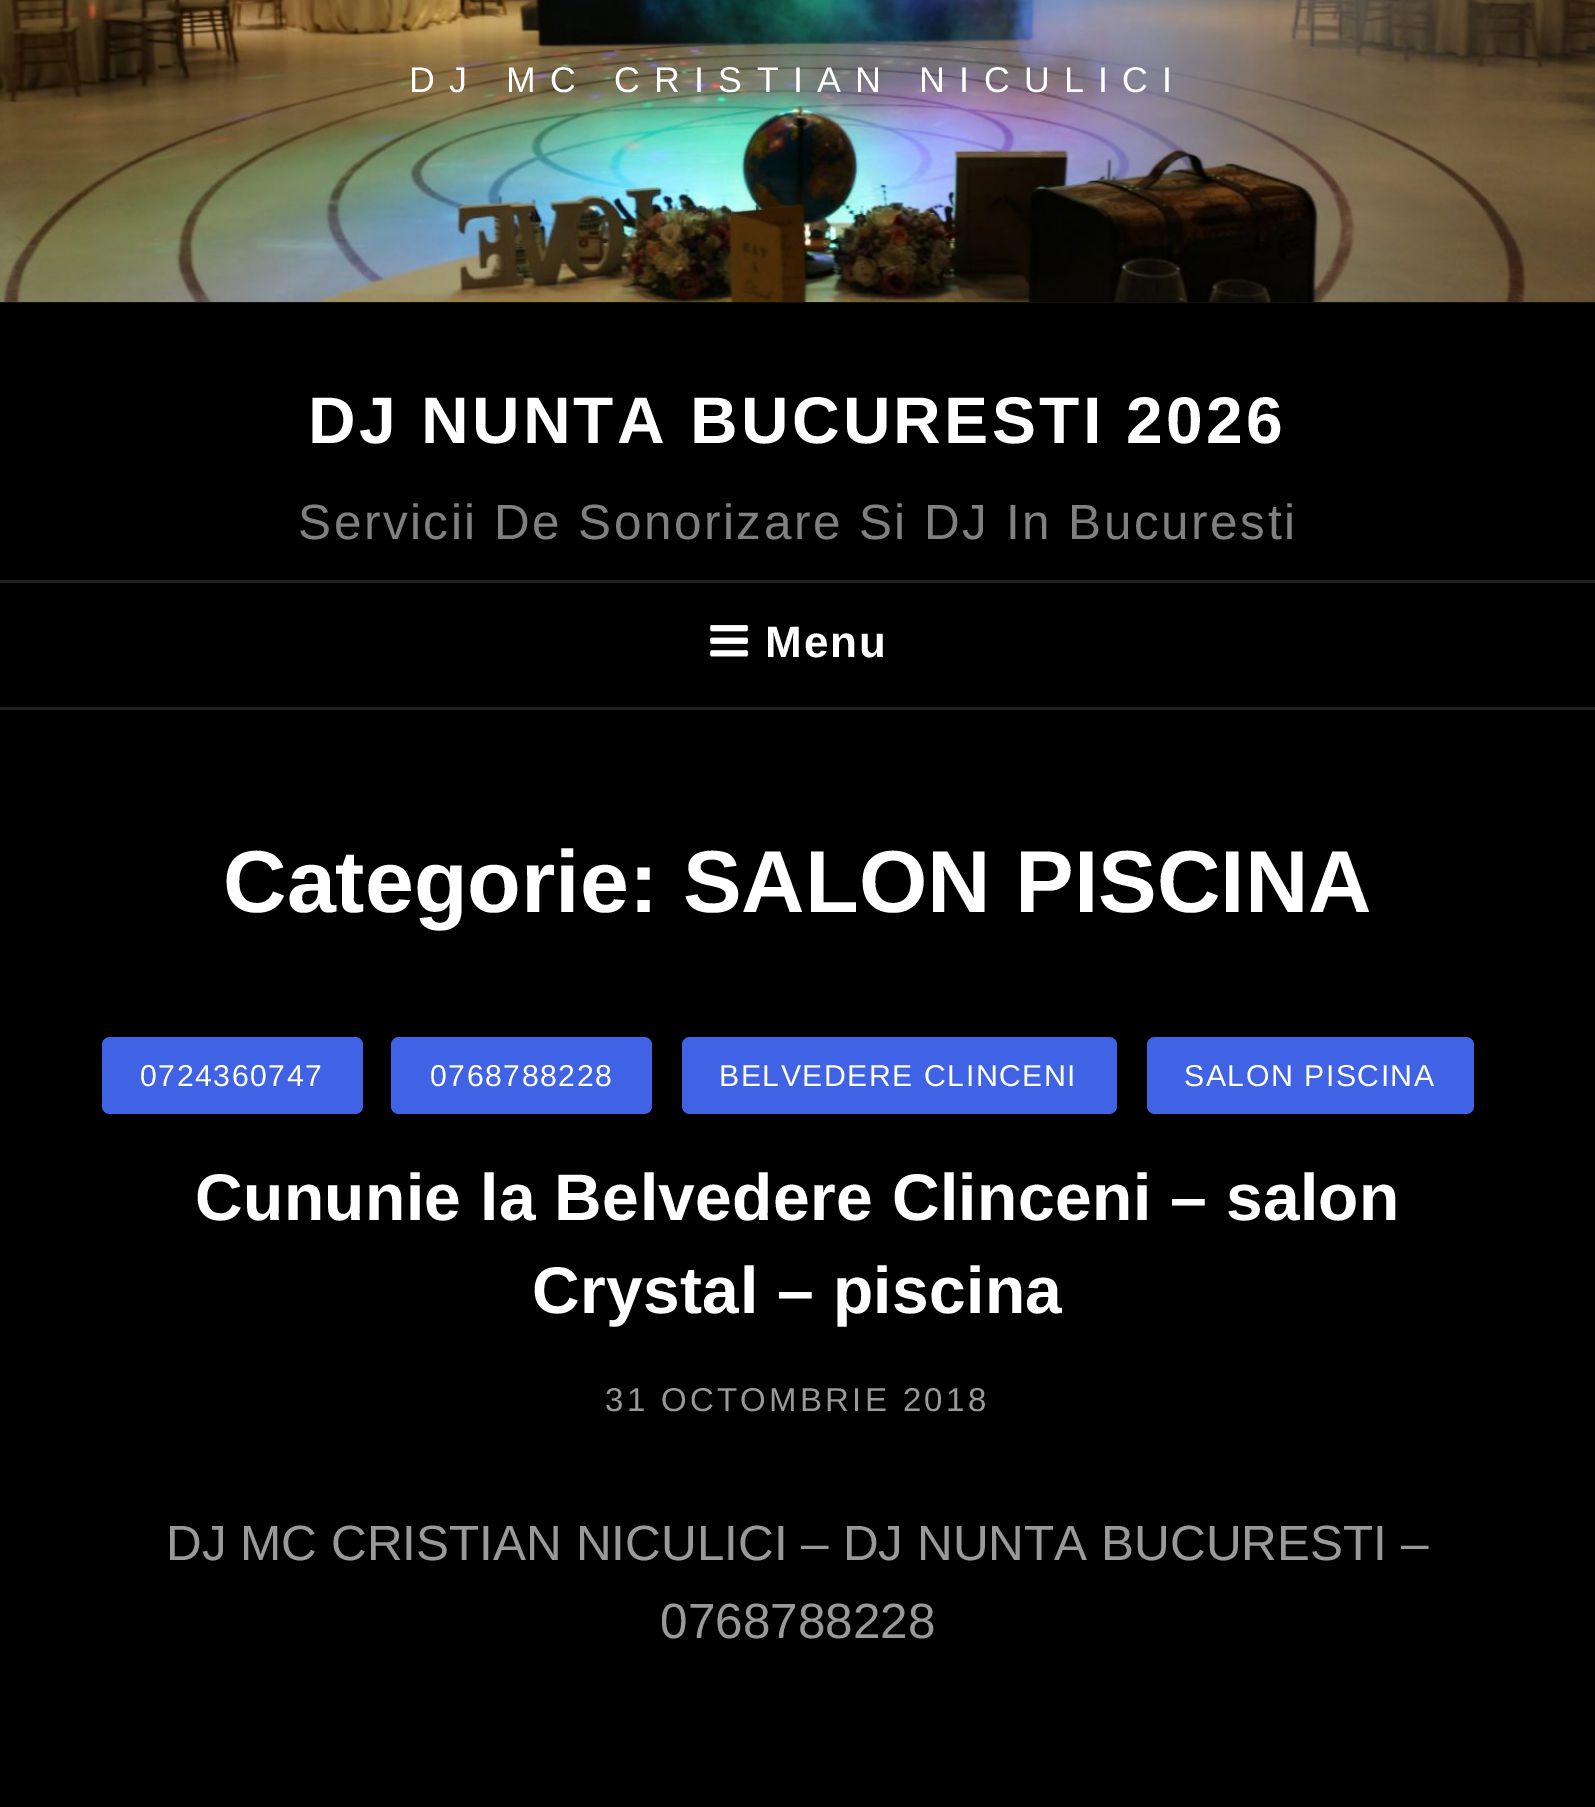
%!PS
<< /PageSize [1595 1807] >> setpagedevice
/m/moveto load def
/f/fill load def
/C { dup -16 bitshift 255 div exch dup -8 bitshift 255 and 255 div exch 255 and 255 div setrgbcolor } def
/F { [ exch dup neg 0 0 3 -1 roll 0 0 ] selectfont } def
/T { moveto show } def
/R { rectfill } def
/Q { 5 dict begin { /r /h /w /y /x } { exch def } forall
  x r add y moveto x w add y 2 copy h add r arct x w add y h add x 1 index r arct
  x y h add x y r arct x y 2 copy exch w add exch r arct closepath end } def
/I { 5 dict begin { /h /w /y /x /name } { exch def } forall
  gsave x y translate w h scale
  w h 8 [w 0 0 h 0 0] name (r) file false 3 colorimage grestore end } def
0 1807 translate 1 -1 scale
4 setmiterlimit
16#000000 C
0 0 1595 1807 R
16#111111 C
0 302 1595 1 R
(1.rgb) 0 0 1595 302 I
/LiberationSans-Regular 35.75 F
16#FFFFFF C
409 92 m 14.3 0 (DJ MC CRISTIAN NICULICI) ashow
/LiberationSans-Bold 66 F
308 443 m 3.3 0 (DJ NUNTA BUCURESTI 2026) ashow
/LiberationSans-Regular 49.5 F
16#808080 C
298 539 m 2.5 0 (Servicii De Sonorizare Si DJ In Bucuresti) ashow
16#202020 C
0 580 1595 3 R
0 707 1595 3 R
(2.rgb) 710 625 38 32 I
/LiberationSans-Bold 44 F
16#FFFFFF C
765 657 m 2 0 (Menu) ashow
/LiberationSans-Bold 88 F
(Categorie: SALON PISCINA) 223 912 T
16#4063E6 C
102 1037 261 77 8 Q f
/LiberationSans-Regular 30.25 F
16#FFFFFF C
140 1086 m 1.5 0 (0724360747) ashow
16#4063E6 C
391 1037 261 77 8 Q f
16#FFFFFF C
430 1086 m 1.5 0 (0768788228) ashow
16#4063E6 C
682 1037 435 77 8 Q f
16#FFFFFF C
719 1086 m 1.5 0 (BELVEDERE CLINCENI) ashow
16#4063E6 C
1147 1037 327 77 8 Q f
16#FFFFFF C
1184 1086 m 1.5 0 (SALON PISCINA) ashow
/LiberationSans-Bold 66 F
195 1220 m .35 0 (Cununie la Belvedere Clinceni – salon) ashow
532 1313 m .35 0 (Crystal – piscina) ashow
/LiberationSans-Regular 33 F
16#999999 C
605 1411 m 3.3 0 (31 OCTOMBRIE 2018) ashow
/LiberationSans-Regular 49.5 F
(DJ MC CRISTIAN NICULICI – DJ NUNTA BUCURESTI –) 166 1560 T
(0768788228) 660 1638 T
showpage
